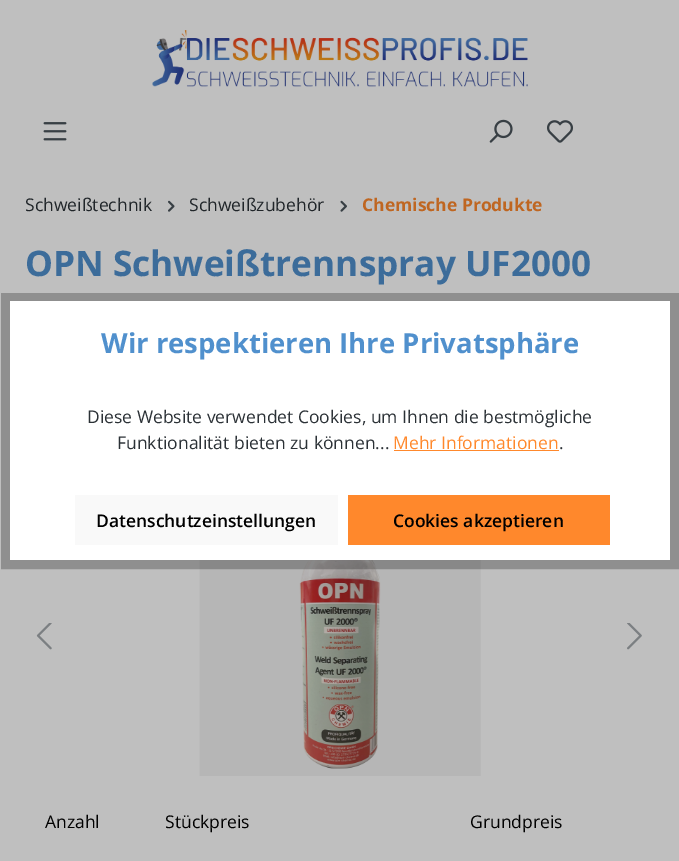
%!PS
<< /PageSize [679 861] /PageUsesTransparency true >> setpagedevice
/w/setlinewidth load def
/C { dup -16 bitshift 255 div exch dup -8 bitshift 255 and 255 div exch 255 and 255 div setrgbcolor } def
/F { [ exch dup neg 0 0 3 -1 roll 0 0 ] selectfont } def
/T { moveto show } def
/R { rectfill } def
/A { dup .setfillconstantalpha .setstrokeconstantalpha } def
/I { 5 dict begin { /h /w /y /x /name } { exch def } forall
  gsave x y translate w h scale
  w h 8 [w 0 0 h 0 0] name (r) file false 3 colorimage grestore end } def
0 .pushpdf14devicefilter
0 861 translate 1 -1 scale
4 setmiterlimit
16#BFBFBF C
0 0 679 861 R
(1.rgb) 152 30 376 57 I
(2.rgb) 43 122 24 19 I
(3.rgb) 489 119 24 24 I
(4.rgb) 547 120 26 23 I
/OpenSans-Regular 17.5 F
16#202529 C
(Schweißtechnik) 25 211 T
(5.rgb) 168 200 7 12 I
(Schweißzubehör) 189 211 T
(6.rgb) 340 200 7 12 I
/OpenSans-Bold 17.5 F
16#BF6621 C
(Chemische Produkte) 362 211 T
/OpenSans-Bold 35.2 F
16#3C6C9A C
(OPN Schweißtrennspray UF2000) 25 276 T
(7.rgb) 199 560 282 216 I
(8.rgb) 36 623 16 27 I
(9.rgb) 627 623 15 27 I
/OpenSans-Regular 17.5 F
16#000000 C
(Anzahl) 45 828 T
(Stückpreis) 165 828 T
(Grundpreis) 470 828 T
0.25 A
9 w
5.5 297.5 669 267 rectstroke
1 A
16#FFFFFF C
10 301 660 259 R
/OpenSans-Bold 27.5 F
16#5090CD C
(Wir respektieren Ihre Privatsphäre) 101 353 T
/OpenSans-Regular 17.5 F
16#2B3136 C
(Diese Website verwendet Cookies, um Ihnen die bestmögliche) 87 423 T
(Funktionalität bieten zu können...) 117 449 T
16#FF882C C
(Mehr Informationen) 393 449 T
394 450 165 1 R
16#2B3136 C
(.) 559 449 T
16#F9F9F9 C
75 495 263 50 R
/OpenSans-SemiBold 17.5 F
16#000000 C
(Datenschutzeinstellungen) 96 527 T
16#FF882C C
348 495 262 50 R
16#000000 C
(Cookies akzeptieren) 393 527 T
.poppdf14devicefilter showpage
